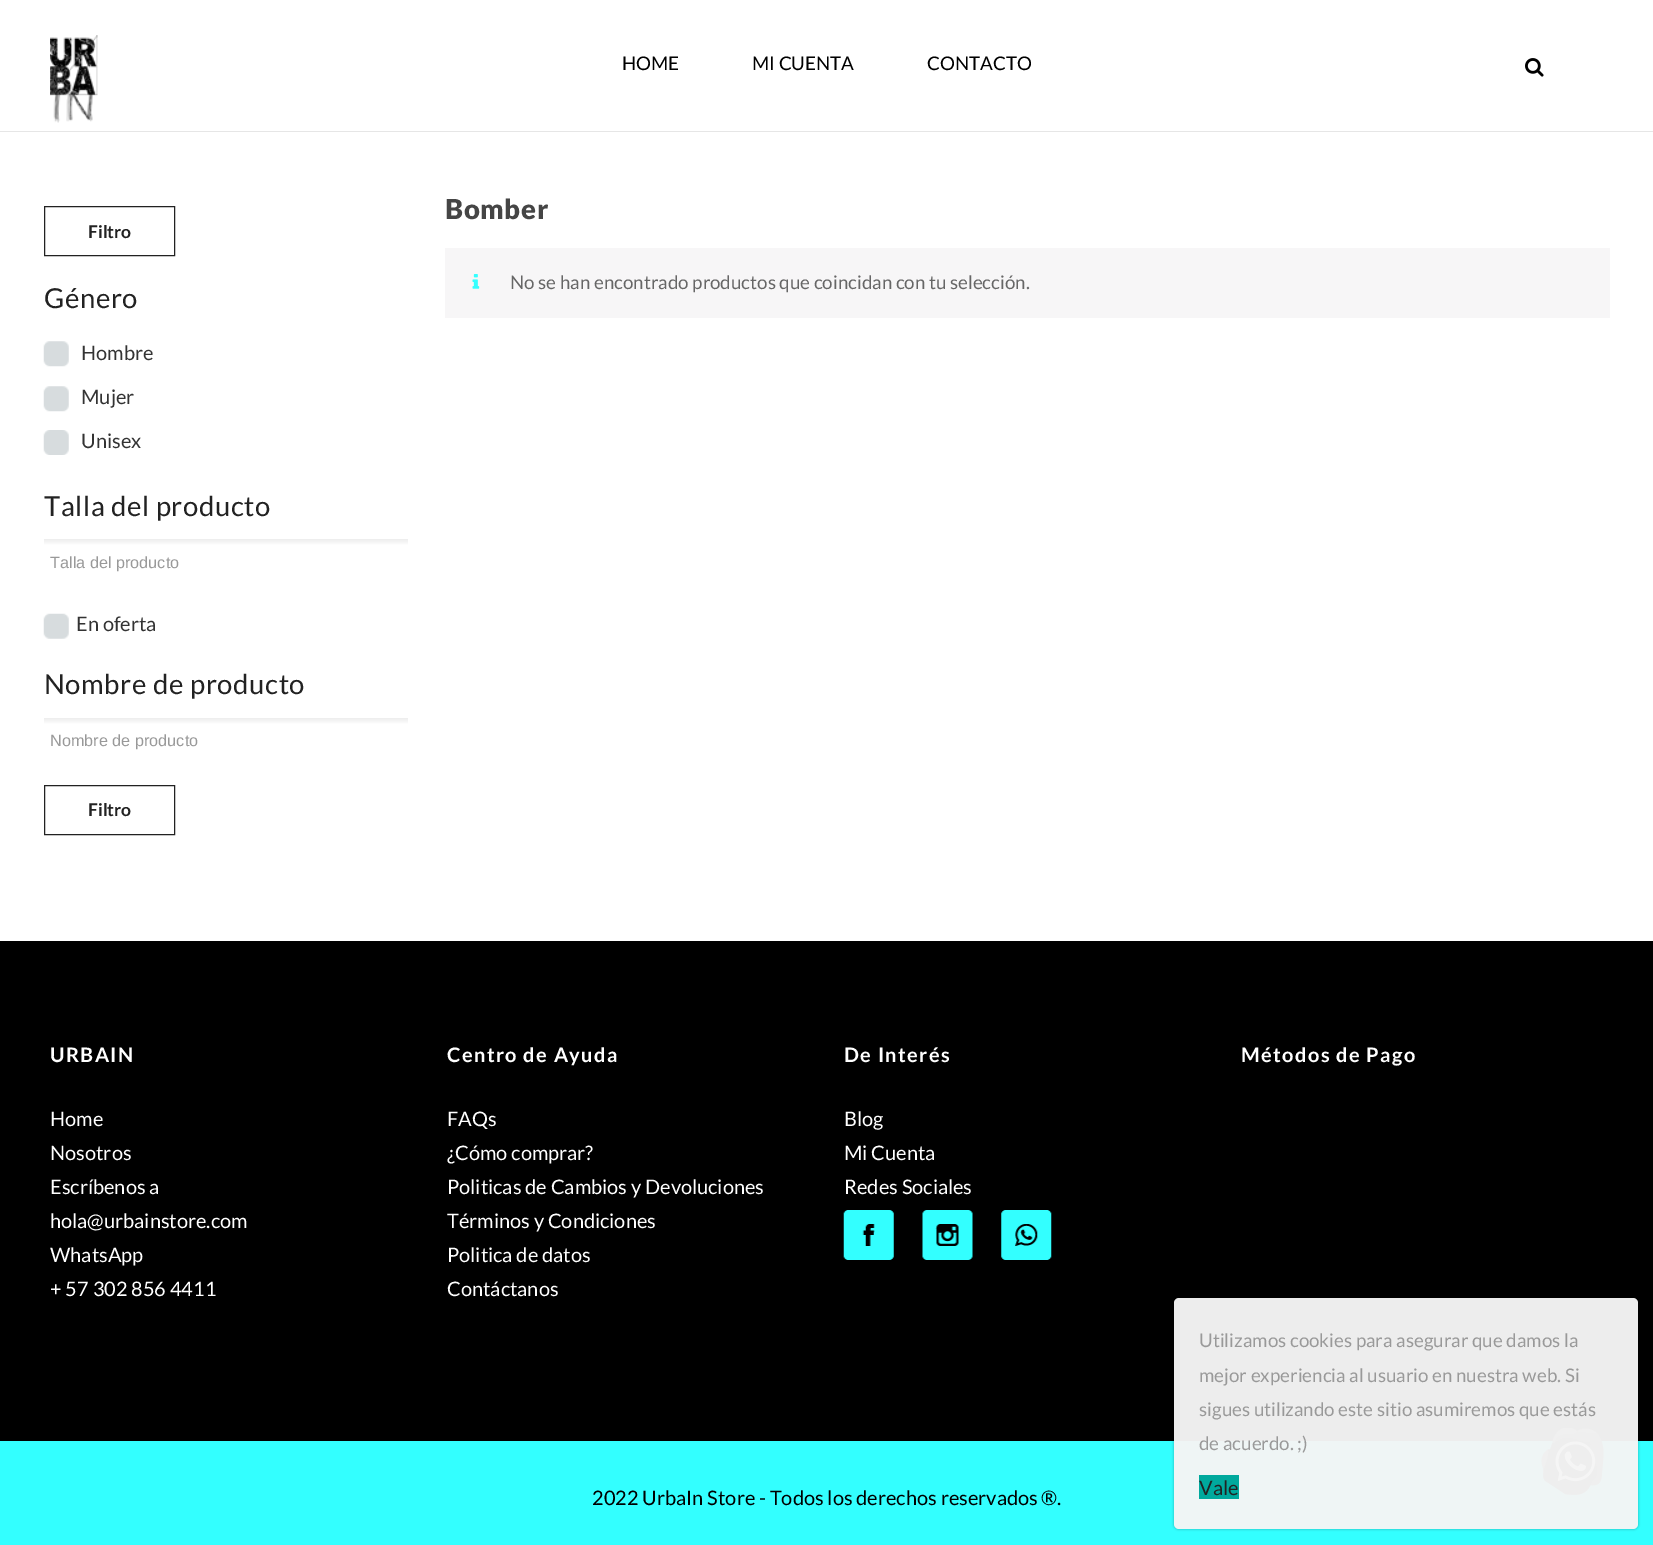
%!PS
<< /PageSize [1653 1545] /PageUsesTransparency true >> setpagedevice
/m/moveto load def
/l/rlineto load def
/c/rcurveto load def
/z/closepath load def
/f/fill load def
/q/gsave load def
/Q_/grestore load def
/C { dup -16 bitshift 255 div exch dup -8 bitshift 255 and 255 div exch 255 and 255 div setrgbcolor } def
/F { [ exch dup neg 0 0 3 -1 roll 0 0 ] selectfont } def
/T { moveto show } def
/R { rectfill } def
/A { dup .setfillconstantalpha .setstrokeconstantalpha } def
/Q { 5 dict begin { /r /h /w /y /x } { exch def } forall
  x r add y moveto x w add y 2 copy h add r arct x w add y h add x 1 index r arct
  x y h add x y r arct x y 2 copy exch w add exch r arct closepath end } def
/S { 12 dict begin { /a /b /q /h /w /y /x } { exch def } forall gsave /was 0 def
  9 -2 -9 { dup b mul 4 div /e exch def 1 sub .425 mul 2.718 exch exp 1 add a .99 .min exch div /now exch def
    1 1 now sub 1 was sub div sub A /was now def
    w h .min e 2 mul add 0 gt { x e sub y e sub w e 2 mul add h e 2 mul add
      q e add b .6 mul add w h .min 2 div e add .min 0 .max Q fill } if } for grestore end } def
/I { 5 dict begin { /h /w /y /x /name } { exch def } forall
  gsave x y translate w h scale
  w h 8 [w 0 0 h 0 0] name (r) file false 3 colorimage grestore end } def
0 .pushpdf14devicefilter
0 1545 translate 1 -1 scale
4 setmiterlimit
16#FFFFFF C
0 0 1653 1545 R
16#E6E6E6 C
0 131 1653 1 R
(1.rgb) 50 35 48 88 I
/Lato-Regular 18.75 F
16#000000 C
(HOME) 622 70 T
(MI CUENTA) 752 70 T
(CONTACTO) 927 70 T
(2.rgb) 1525 58 19 19 I
16#222222 C
44.5 206.5 130 49 rectstroke
/Lato-Bold 17.5 F
(Filtro) 88 238 T
/Lato-Regular 27.5 F
44 308 m .6 0 (Género) ashow
(3.rgb) 43 341 26 26 I
/Lato-Regular 20 F
16#333333 C
(Hombre) 81 360 T
(3.rgb) 43 386 26 26 I
(Mujer) 81 404 T
(4.rgb) 43 430 26 25 I
(Unisex) 81 448 T
/Lato-Regular 27.5 F
16#222222 C
44 516 m .6 0 (Talla del producto) ashow
q 44 539 m 364 0 l 0 6 l -364 0 l z clip newpath
<< /ShadingType 2 /ColorSpace /DeviceRGB /Coords [226 539 226 585] /Extend [true true] /Function << /FunctionType 3 /Domain [0 1] /Functions [<< /FunctionType 2 /Domain [0 1] /C0 [.933 .933 .933] /C1 [.933 .933 .933] /N 1 >> << /FunctionType 2 /Domain [0 1] /C0 [.933 .933 .933] /C1 [1 1 1] /N 1 >> << /FunctionType 2 /Domain [0 1] /C0 [1 1 1] /C1 [1 1 1] /N 1 >>] /Bounds [.01 .15] /Encode [0 1 0 1 0 1] >> >> shfill Q_
/LiberationSans-Regular 16.25 F
16#999999 C
(Talla del producto) 50 568 T
(5.rgb) 43 613 26 26 I
/Lato-Regular 20 F
16#333333 C
(En oferta) 76 631 T
/Lato-Regular 27.5 F
16#222222 C
44 694 m .6 0 (Nombre de producto) ashow
q 44 718 m 364 0 l 0 6 l -364 0 l z clip newpath
<< /ShadingType 2 /ColorSpace /DeviceRGB /Coords [226 718 226 764] /Extend [true true] /Function << /FunctionType 3 /Domain [0 1] /Functions [<< /FunctionType 2 /Domain [0 1] /C0 [.933 .933 .933] /C1 [.933 .933 .933] /N 1 >> << /FunctionType 2 /Domain [0 1] /C0 [.933 .933 .933] /C1 [1 1 1] /N 1 >> << /FunctionType 2 /Domain [0 1] /C0 [1 1 1] /C1 [1 1 1] /N 1 >>] /Bounds [.01 .15] /Encode [0 1 0 1 0 1] >> >> shfill Q_
/LiberationSans-Regular 16.25 F
16#999999 C
(Nombre de producto) 50 746 T
16#222222 C
44.5 785.5 130 49 rectstroke
/Lato-Bold 17.5 F
(Filtro) 88 816 T
/Lato-Black 27.5 F
16#454545 C
445 219 m .6 0 (Bomber) ashow
16#F7F6F7 C
445 248 1165 70 R
(6.rgb) 472 274 8 15 I
/Lato-Regular 18.75 F
16#666666 C
(No se han encontrado productos que coincidan con tu selección.) 510 289 T
16#000000 C
0 941 1653 500 R
/Lato-Bold 20 F
16#FFFFFF C
50 1062 m 1.4 0 (URBAIN) ashow
/Lato-Regular 20 F
(Home) 50 1126 T
(Nosotros) 50 1160 T
(Escríbenos a) 50 1194 T
(hola@urbainstore.com) 50 1228 T
(WhatsApp) 50 1262 T
(+ 57 302 856 4411) 50 1296 T
/Lato-Bold 20 F
447 1062 m 1.4 0 (Centro de Ayuda) ashow
/Lato-Regular 20 F
(FAQs) 447 1126 T
(¿Cómo comprar?) 447 1160 T
(Politicas de Cambios y Devoluciones) 447 1194 T
(Términos y Condiciones) 447 1228 T
(Politica de datos) 447 1262 T
(Contáctanos) 447 1296 T
/Lato-Bold 20 F
844 1062 m 1.4 0 (De Interés) ashow
/Lato-Regular 20 F
(Blog) 844 1126 T
(Mi Cuenta) 844 1160 T
(Redes Sociales) 844 1194 T
(7.rgb) 843 1210 51 50 I
(8.rgb) 922 1210 51 50 I
(9.rgb) 1001 1210 51 50 I
/Lato-Bold 20 F
1241 1062 m 1.4 0 (Métodos de Pago) ashow
16#33FFFF C
0 1441 1653 104 R
/Lato-Regular 20 F
16#000000 C
(2022 UrbaIn Store - Todos los derechos reservados ®.) 592 1505 T
(10.rgb) 1541 1428 63 67 I
q
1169 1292 m 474 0 l 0 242 l -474 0 l z 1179 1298 m 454 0 l 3 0 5 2 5 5 c 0 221 l 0 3 -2 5 -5 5 c -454 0 l -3 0 -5 -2 -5 -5 c 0 -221 l 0 -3 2 -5 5 -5 c z eoclip newpath
1173 1296 466 234 6 1 .15 S
Q_
0.97 A
16#F5F5F5 C
1174 1298 464 231 5 Q f
/Lato-Regular 18.75 F
1 A
16#999999 C
(Utilizamos cookies para asegurar que damos la) 1199 1347 T
(mejor experiencia al usuario en nuestra web. Si) 1199 1382 T
(sigues utilizando este sitio asumiremos que estás) 1199 1416 T
(de acuerdo. ;\)) 1199 1450 T
16#00A99D C
1199 1475 40 24 R
/Lato-Regular 20 F
16#222222 C
(Vale) 1199 1495 T
.poppdf14devicefilter showpage
